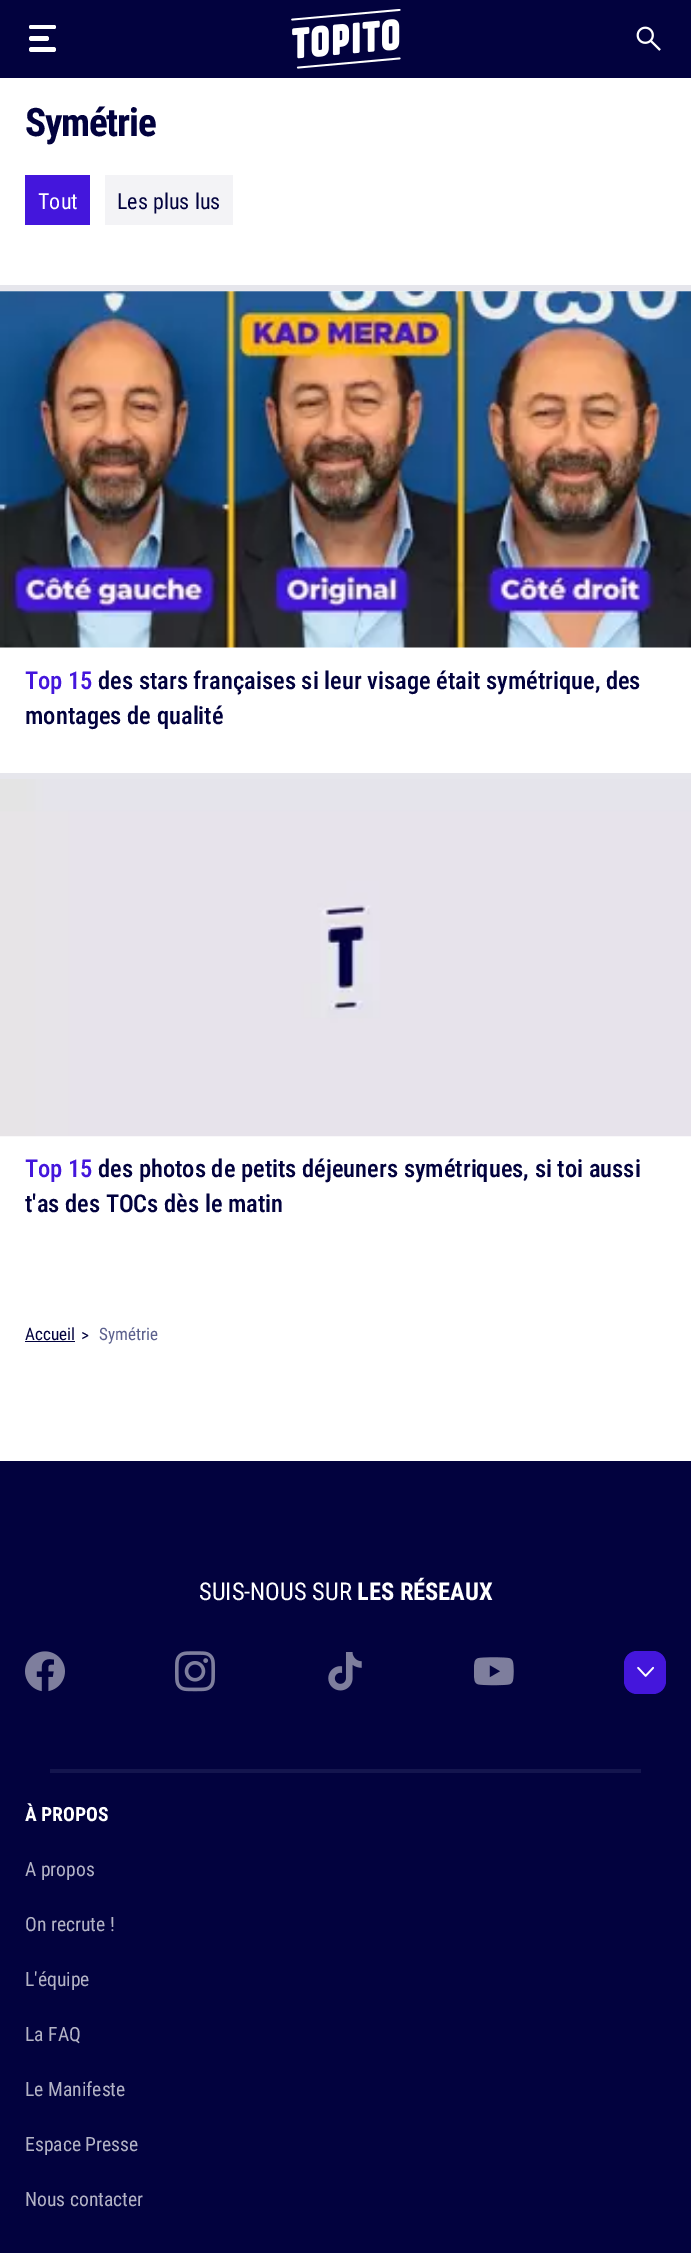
%!PS
<< /PageSize [691 2253] >> setpagedevice
/m/moveto load def
/f/fill load def
/C { dup -16 bitshift 255 div exch dup -8 bitshift 255 and 255 div exch 255 and 255 div setrgbcolor } def
/F { [ exch dup neg 0 0 3 -1 roll 0 0 ] selectfont } def
/T { moveto show } def
/R { rectfill } def
/Q { 5 dict begin { /r /h /w /y /x } { exch def } forall
  x r add y moveto x w add y 2 copy h add r arct x w add y h add x 1 index r arct
  x y h add x y r arct x y 2 copy exch w add exch r arct closepath end } def
/I { 5 dict begin { /h /w /y /x /name } { exch def } forall
  gsave x y translate w h scale
  w h 8 [w 0 0 h 0 0] name (r) file false 3 colorimage grestore end } def
0 2253 translate 1 -1 scale
4 setmiterlimit
16#FFFFFF C
0 0 691 2253 R
16#02023E C
0 0 691 78 R
16#FFFFFF C
29 25 27 4 2 Q f
29 36 20 5 2.5 Q f
29 47 27 5 2.5 Q f
(1.rgb) 291 9 110 60 I
(2.rgb) 636 26 25 25 I
/RobotoCondensed-Bold 40 F
16#02023E C
25 136 m -1.25 0 (Symétrie) ashow
16#4416DC C
25 175 65 50 R
/RobotoCondensed-Regular 22.5 F
16#FFFFFF C
(Tout) 38 209 T
16#F3F3F6 C
105 175 128 50 R
16#02023E C
(Les plus lus) 117 209 T
16#E6E6EC C
0 285 691 6 R
(3.rgb) 0 291 691 357 I
/RobotoCondensed-Medium 25 F
16#4416DC C
(Top 15) 25 689 T
16#02023E C
(des stars françaises si leur visage était symétrique, des) 98 689 T
(montages de qualité) 25 724 T
16#E6E6EC C
0 773 691 6 R
(4.rgb) 0 779 691 358 I
16#4416DC C
(Top 15) 25 1177 T
16#02023E C
(des photos de petits déjeuners symétriques, si toi aussi) 98 1177 T
(t'as des TOCs dès le matin) 25 1212 T
/RobotoCondensed-Regular 17.5 F
(Accueil) 25 1340 T
25 1341 50 1 R
(>) 81 1341 T
16#5B608D C
(Symétrie) 99 1340 T
16#02023E C
0 1461 691 792 R
/RobotoCondensed-Regular 25 F
16#FFFFFF C
(SUIS-NOUS SUR) 199 1600 T
/RobotoCondensed-Bold 25 F
(LES RÉSEAUX) 357 1600 T
(5.rgb) 25 1651 40 41 I
(6.rgb) 175 1651 40 41 I
(7.rgb) 328 1652 34 39 I
(8.rgb) 474 1657 40 29 I
16#4416DC C
624 1651 42 43 13 Q f
(9.rgb) 637 1666 17 11 I
16#14154E C
50 1769 591 4 R
/RobotoCondensed-Bold 20 F
16#FFFFFF C
(À PROPOS) 25 1821 T
/RobotoCondensed-Regular 20 F
16#B3B3C5 C
(A propos) 25 1876 T
(On recrute !) 25 1931 T
(L'équipe) 25 1986 T
(La FAQ) 25 2041 T
(Le Manifeste) 25 2096 T
(Espace Presse) 25 2151 T
(Nous contacter) 25 2206 T
showpage
